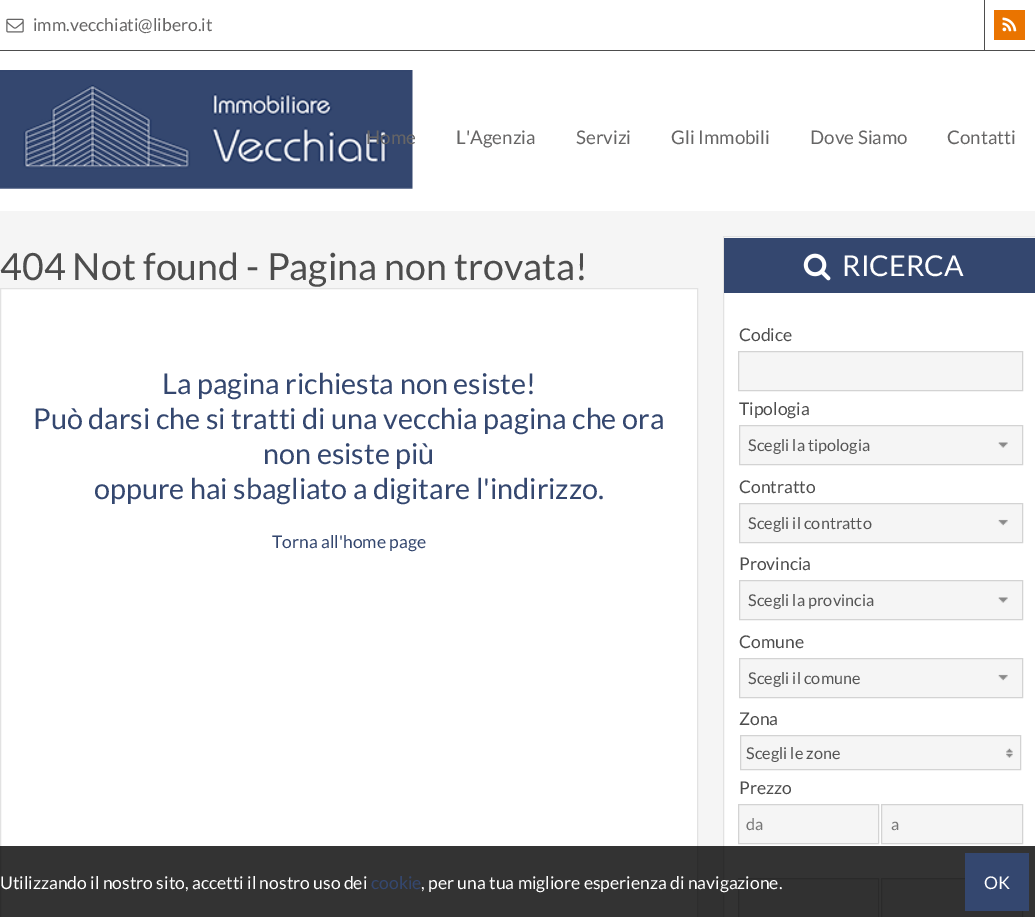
%!PS
<< /PageSize [1035 917] /PageUsesTransparency true >> setpagedevice
/m/moveto load def
/l/rlineto load def
/z/closepath load def
/f/fill load def
/s/stroke load def
/q/gsave load def
/Q_/grestore load def
/C { dup -16 bitshift 255 div exch dup -8 bitshift 255 and 255 div exch 255 and 255 div setrgbcolor } def
/F { [ exch dup neg 0 0 3 -1 roll 0 0 ] selectfont } def
/T { moveto show } def
/R { rectfill } def
/A { dup .setfillconstantalpha .setstrokeconstantalpha } def
/I { 5 dict begin { /h /w /y /x /name } { exch def } forall
  gsave x y translate w h scale
  w h 8 [w 0 0 h 0 0] name (r) file false 3 colorimage grestore end } def
0 .pushpdf14devicefilter
0 917 translate 1 -1 scale
4 setmiterlimit
16#F5F5F5 C
0 0 1035 917 R
16#FFFFFF C
0 0 1035 211 R
(1.rgb) 6 18 18 15 I
/Lato-Regular 17.5 F
16#666565 C
(imm.vecchiati@libero.it) 33 31 T
16#4D4D4D C
984 0 1 50 R
16#EA7400 C
994 10 31 30 R
(2.rgb) 1002 17 15 15 I
16#4D4D4D C
0 50 1035 1 R
(3.rgb) 0 70 413 119 I
/Lato-Regular 18.75 F
16#666565 C
(Home) 366 144 T
(L'Agenzia) 456 144 T
(Servizi) 576 144 T
(Gli Immobili) 671 144 T
(Dove Siamo) 810 144 T
(Contatti) 947 144 T
/Lato-Regular 37.5 F
16#4D4D4D C
(404 Not found - Pagina non trovata!) 0 280 T
16#FFFFFF C
.5 288.5 m 697 0 l 0 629 l -697 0 l z q f Q_
16#E2E2E2 C
s
/Lato-Regular 28.75 F
16#34476F C
(La pagina richiesta non esiste!) 162 394 T
(Può darsi che si tratti di una vecchia pagina che ora) 33 429 T
(non esiste più) 263 464 T
(oppure hai sbagliato a digitare l'indirizzo.) 94 499 T
/Lato-Regular 17.5 F
(Torna all'home page) 272 548 T
16#FFFFFF C
723.5 236.5 m 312 0 l 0 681 l -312 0 l z q f Q_
16#E2E2E2 C
s
16#34476F C
724 238 311 55 R
(4.rgb) 803 253 28 28 I
/Lato-Regular 28.75 F
16#FFFFFF C
(RICERCA) 842 276 T
/Lato-Regular 17.5 F
16#4D4D4D C
(Codice) 739 341 T
16#F5F5F5 C
738.5 351.5 m 284 0 l 0 39 l -284 0 l z q f Q_
16#D3D3D3 C
s
16#4D4D4D C
(Tipologia) 739 415 T
16#F5F5F5 C
739.5 425.5 m 283 0 l 0 39 l -283 0 l z q f Q_
16#D3D3D3 C
s
/Lato-Regular 16.25 F
16#555555 C
(Scegli la tipologia) 748 451 T
(5.rgb) 998 442 10 6 I
/Lato-Regular 17.5 F
16#4D4D4D C
(Contratto) 739 493 T
16#F5F5F5 C
739.5 503.5 m 283 0 l 0 39 l -283 0 l z q f Q_
16#D3D3D3 C
s
/Lato-Regular 16.25 F
16#555555 C
(Scegli il contratto) 748 529 T
(6.rgb) 998 519 10 7 I
/Lato-Regular 17.5 F
16#4D4D4D C
(Provincia) 739 570 T
16#F5F5F5 C
739.5 580.5 m 283 0 l 0 39 l -283 0 l z q f Q_
16#D3D3D3 C
s
/Lato-Regular 16.25 F
16#555555 C
(Scegli la provincia) 748 606 T
(5.rgb) 998 597 10 6 I
/Lato-Regular 17.5 F
16#4D4D4D C
(Comune) 739 648 T
16#F5F5F5 C
739.5 658.5 m 283 0 l 0 39 l -283 0 l z q f Q_
16#D3D3D3 C
s
/Lato-Regular 16.25 F
16#555555 C
(Scegli il comune) 748 684 T
(6.rgb) 998 674 10 7 I
/Lato-Regular 17.5 F
16#4D4D4D C
(Zona) 739 725 T
16#F5F5F5 C
740.5 735.5 m 280 0 l 0 34 l -280 0 l z q f Q_
16#D3D3D3 C
s
/Lato-Regular 16.25 F
16#555555 C
(Scegli le zone) 746 759 T
(7.rgb) 1006 748 7 10 I
/Lato-Regular 17.5 F
16#4D4D4D C
(Prezzo) 739 794 T
16#F5F5F5 C
738.5 804.5 m 140 0 l 0 39 l -140 0 l z q f Q_
16#D3D3D3 C
s
/Lato-Regular 16.25 F
16#757575 C
(da) 746 830 T
16#F5F5F5 C
881.5 804.5 m 141 0 l 0 39 l -141 0 l z q f Q_
16#D3D3D3 C
s
16#757575 C
(a) 891 830 T
16#F5F5F5 C
738.5 878.5 m 140 0 l 0 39 l -140 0 l z q f Q_
16#D3D3D3 C
s
16#F5F5F5 C
881.5 878.5 m 141 0 l 0 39 l -141 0 l z q f Q_
16#D3D3D3 C
s
0.8 A
16#000000 C
0 846 1035 71 R
/Lato-Regular 17.5 F
1 A
16#FFFFFF C
(Utilizzando il nostro sito, accetti il nostro uso dei) 0 889 T
16#34476F C
(cookie) 371 889 T
16#FFFFFF C
(, per una tua migliore esperienza di navigazione.) 421 889 T
16#34476F C
965 853 64 58 R
16#FFFFFF C
(OK) 984 889 T
.poppdf14devicefilter showpage
